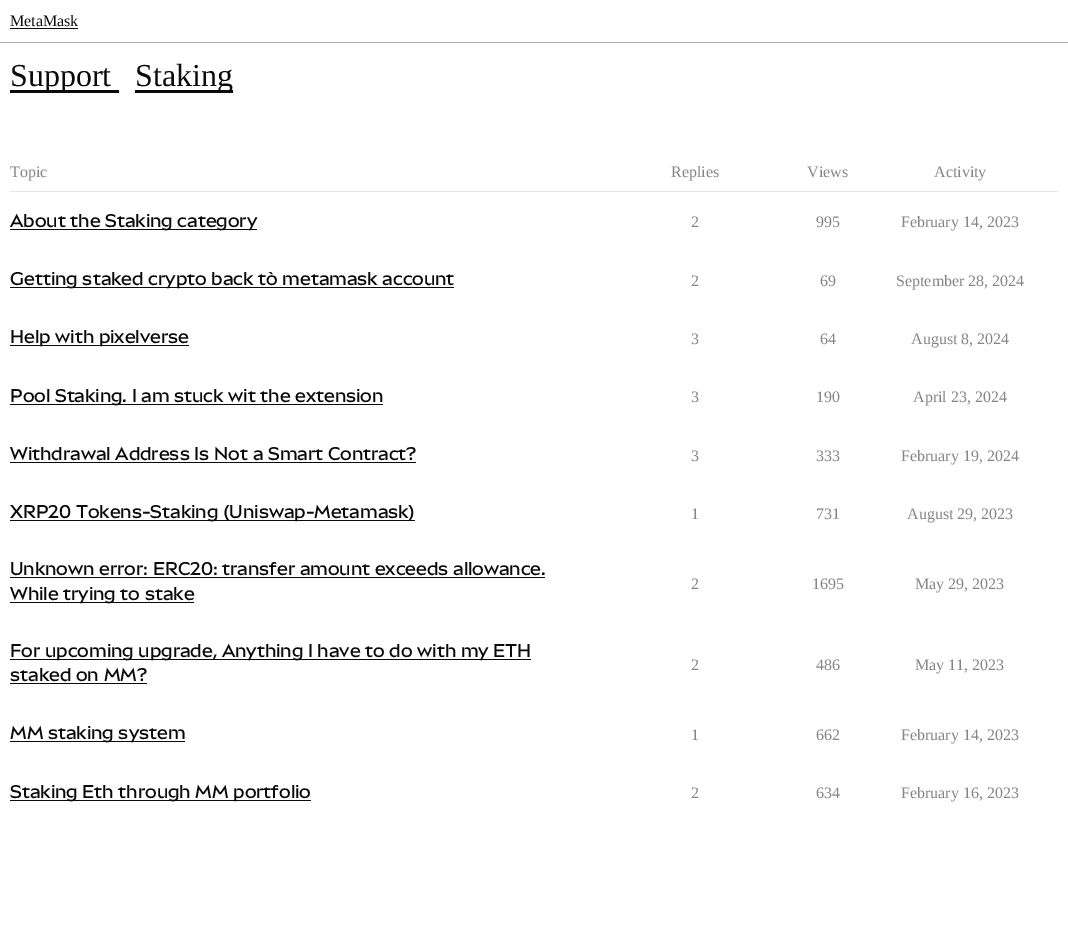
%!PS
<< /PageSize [1068 929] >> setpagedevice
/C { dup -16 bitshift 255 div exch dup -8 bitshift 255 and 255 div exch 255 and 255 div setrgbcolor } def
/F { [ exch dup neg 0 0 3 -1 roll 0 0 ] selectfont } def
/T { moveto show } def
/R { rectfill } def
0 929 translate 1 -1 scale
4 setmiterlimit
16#FFFFFF C
0 0 1068 929 R
16#ABABAB C
0 42 1068 1 R
/LiberationSerif-Regular 16 F
16#0A0A0A C
(MetaMask) 10 26 T
10 28 68 1 R
10 90 101 3 R
/LiberationSerif-Regular 32 F
(Support) 10 86 T
111 90 8 3 R
135 90 98 3 R
(Staking) 135 86 T
/LiberationSerif-Regular 16 F
16#858585 C
(Topic) 10 177 T
(Replies) 671 177 T
(Views) 807 177 T
(Activity) 934 177 T
16#E7E7E7 C
10 191 1048 1 R
16#0A0A0A C
10 229 247 1 R
/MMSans-Regular 16.1 F
(About the Staking category) 10 227 T
/LiberationSerif-Regular 16 F
16#858585 C
(2) 691 227 T
(995) 816 227 T
(February 14, 2023) 901 227 T
16#0A0A0A C
10 287 444 1 R
/MMSans-Regular 16.1 F
(Getting staked crypto back tò metamask account) 10 285 T
/LiberationSerif-Regular 16 F
16#858585 C
(2) 691 286 T
(69) 820 286 T
(September 28, 2024) 896 286 T
16#0A0A0A C
10 345 179 1 R
/MMSans-Regular 16.1 F
(Help with pixelverse) 10 343 T
/LiberationSerif-Regular 16 F
16#858585 C
(3) 691 344 T
(64) 820 344 T
(August 8, 2024) 911 344 T
16#0A0A0A C
10 404 373 1 R
/MMSans-Regular 16.1 F
(Pool Staking. I am stuck wit the extension) 10 402 T
/LiberationSerif-Regular 16 F
16#858585 C
(3) 691 402 T
(190) 816 402 T
(April 23, 2024) 913 402 T
/MMSans-Regular 16.1 F
16#0A0A0A C
(Withdrawal Address Is Not a Smart Contract?) 10 460 T
10 462 406 1 R
/LiberationSerif-Regular 16 F
16#858585 C
(3) 691 461 T
(333) 816 461 T
(February 19, 2024) 901 461 T
16#0A0A0A C
10 520 405 1 R
/MMSans-Regular 16.1 F
(XRP20 Tokens-Staking \(Uniswap-Metamask\)) 10 518 T
/LiberationSerif-Regular 16 F
16#858585 C
(1) 691 519 T
(731) 816 519 T
(August 29, 2023) 907 519 T
/MMSans-Regular 16.1 F
16#0A0A0A C
(Unknown error: ERC20: transfer amount exceeds allowance.) 10 575 T
10 577 535 1 R
10 602 184 1 R
(While trying to stake) 10 600 T
/LiberationSerif-Regular 16 F
16#858585 C
(2) 691 589 T
(1695) 812 589 T
(May 29, 2023) 915 589 T
16#0A0A0A C
10 659 521 1 R
/MMSans-Regular 16.1 F
(For upcoming upgrade, Anything I have to do with my ETH) 10 657 T
(staked on MM?) 10 681 T
10 683 137 1 R
/LiberationSerif-Regular 16 F
16#858585 C
(2) 691 670 T
(486) 816 670 T
(May 11, 2023) 915 670 T
16#0A0A0A C
10 741 175 1 R
/MMSans-Regular 16.1 F
(MM staking system) 10 739 T
/LiberationSerif-Regular 16 F
16#858585 C
(1) 691 740 T
(662) 816 740 T
(February 14, 2023) 901 740 T
16#0A0A0A C
10 800 301 1 R
/MMSans-Regular 16.1 F
(Staking Eth through MM portfolio) 10 798 T
/LiberationSerif-Regular 16 F
16#858585 C
(2) 691 798 T
(634) 816 798 T
(February 16, 2023) 901 798 T
showpage
